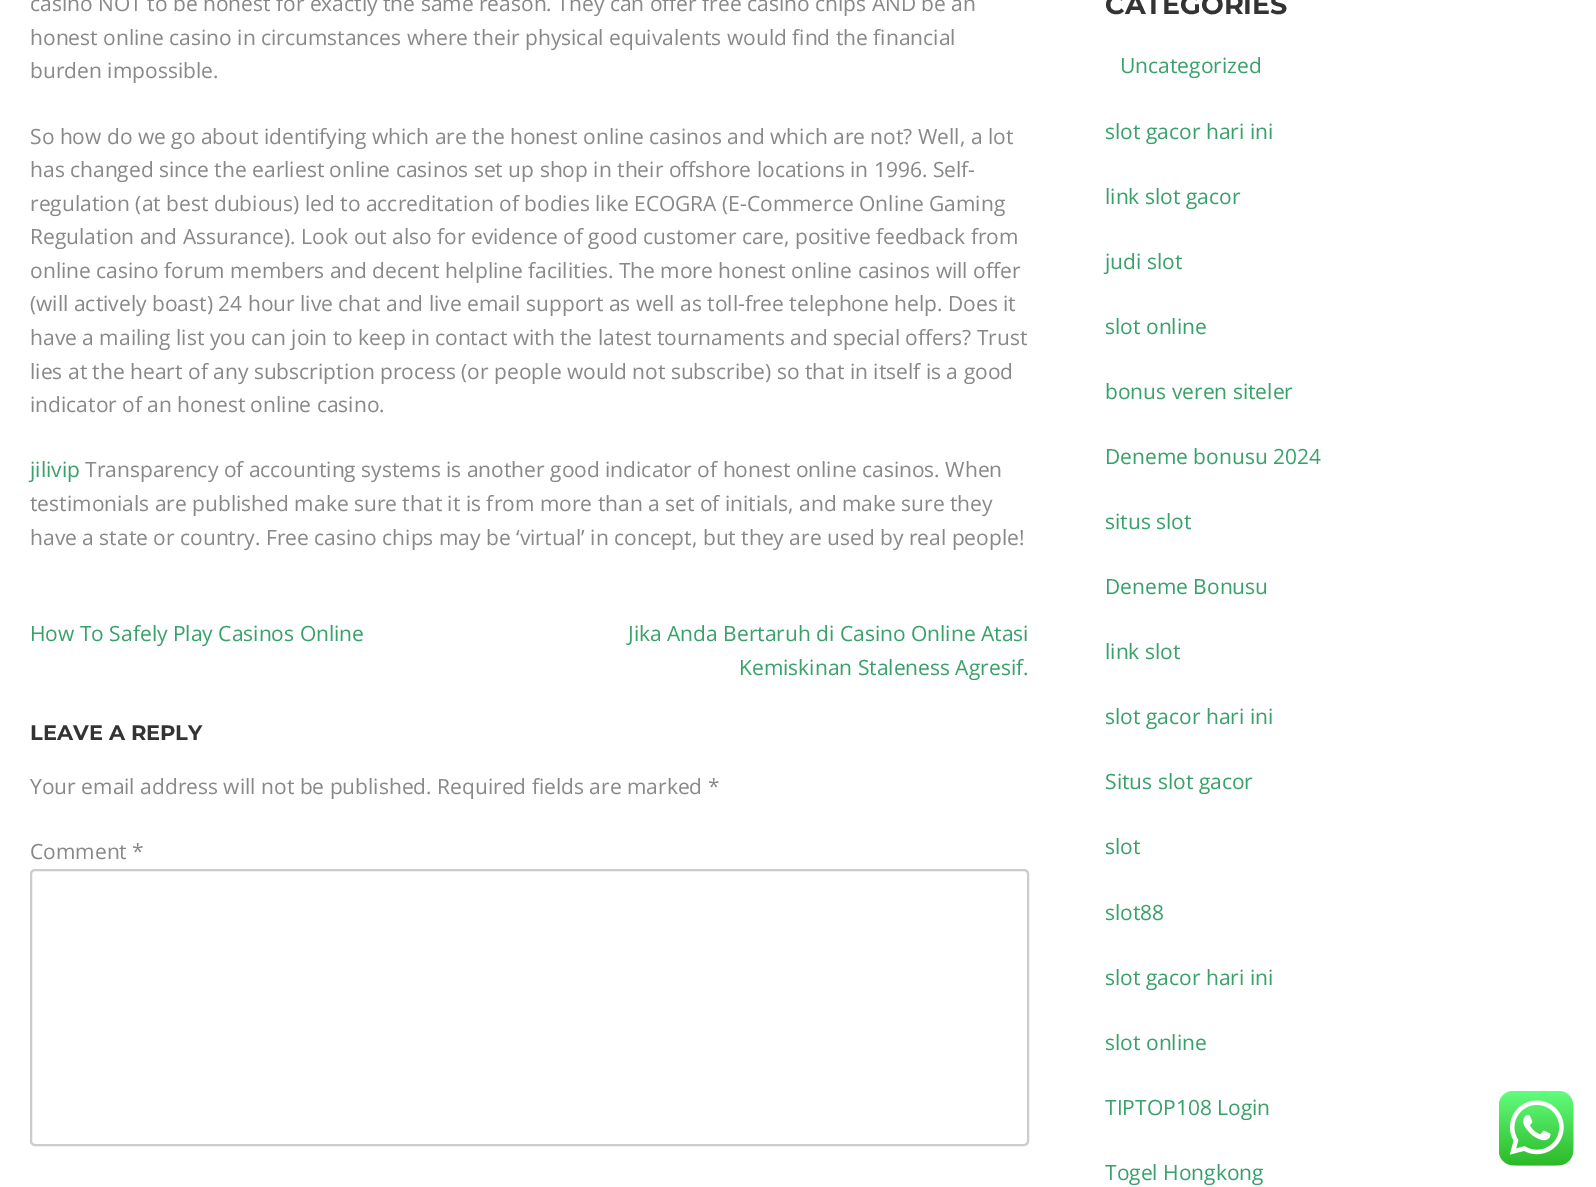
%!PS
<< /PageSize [1596 1187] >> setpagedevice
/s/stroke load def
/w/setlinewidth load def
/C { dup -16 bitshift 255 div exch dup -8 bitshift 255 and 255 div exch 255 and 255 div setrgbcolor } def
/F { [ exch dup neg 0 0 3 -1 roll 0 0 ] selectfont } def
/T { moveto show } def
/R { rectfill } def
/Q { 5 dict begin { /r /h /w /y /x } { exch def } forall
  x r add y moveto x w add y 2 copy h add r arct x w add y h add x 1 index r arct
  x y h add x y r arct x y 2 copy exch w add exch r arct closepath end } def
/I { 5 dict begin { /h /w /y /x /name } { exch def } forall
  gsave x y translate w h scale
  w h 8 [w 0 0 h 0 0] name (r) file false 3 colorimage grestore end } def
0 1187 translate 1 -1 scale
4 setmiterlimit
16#FFFFFF C
0 0 1596 1187 R
/OpenSans-Regular 21 F
16#888888 C
(casino NOT to be honest for exactly the same reason. They can offer free casino chips AND be an) 30 11 T
(honest online casino in circumstances where their physical equivalents would find the financial) 30 45 T
(burden impossible.) 30 78 T
(So how do we go about identifying which are the honest online casinos and which are not? Well, a lot) 30 144 T
(has changed since the earliest online casinos set up shop in their offshore locations in 1996. Self-) 30 177 T
(regulation \(at best dubious\) led to accreditation of bodies like ECOGRA \(E-Commerce Online Gaming) 30 211 T
(Regulation and Assurance\). Look out also for evidence of good customer care, positive feedback from) 30 244 T
(online casino forum members and decent helpline facilities. The more honest online casinos will offer) 30 278 T
(\(will actively boast\) 24 hour live chat and live email support as well as toll-free telephone help. Does it) 30 311 T
(have a mailing list you can join to keep in contact with the latest tournaments and special offers? Trust) 30 345 T
(lies at the heart of any subscription process \(or people would not subscribe\) so that in itself is a good) 30 379 T
(indicator of an honest online casino.) 30 412 T
16#38A16A C
(jilivip) 30 477 T
16#888888 C
(Transparency of accounting systems is another good indicator of honest online casinos. When) 85 477 T
(testimonials are published make sure that it is from more than a set of initials, and make sure they) 30 511 T
(have a state or country. Free casino chips may be ‘virtual’ in concept, but they are used by real people!) 30 545 T
16#38A16A C
(How To Safely Play Casinos Online) 30 641 T
(Jika Anda Bertaruh di Casino Online Atasi) 628 641 T
(Kemiskinan Staleness Agresif.) 739 675 T
/Montserrat-Bold 21 F
16#333333 C
(LEAVE A REPLY) 30 740 T
/OpenSans-Regular 21 F
16#888888 C
(Your email address will not be published. Required fields are marked *) 30 794 T
(Comment *) 30 859 T
16#CCCCCC C
2 w
31 870 997 275 4 Q s
/Montserrat-Bold 27 F
16#333333 C
(CATEGORIES) 1105 14 T
/OpenSans-Regular 21 F
16#38A16A C
(Uncategorized) 1120 73 T
(slot gacor hari ini) 1105 139 T
(link slot gacor) 1105 204 T
(judi slot) 1105 269 T
(slot online) 1105 334 T
(bonus veren siteler) 1105 399 T
(Deneme bonusu 2024) 1105 464 T
(situs slot) 1105 529 T
(Deneme Bonusu) 1105 594 T
(link slot) 1105 659 T
(slot gacor hari ini) 1105 724 T
(Situs slot gacor) 1105 789 T
(slot) 1105 854 T
(slot88) 1105 920 T
(slot gacor hari ini) 1105 985 T
(slot online) 1105 1050 T
(TIPTOP108 Login) 1105 1115 T
(Togel Hongkong) 1105 1180 T
(1.rgb) 1499 1091 75 75 I
showpage
